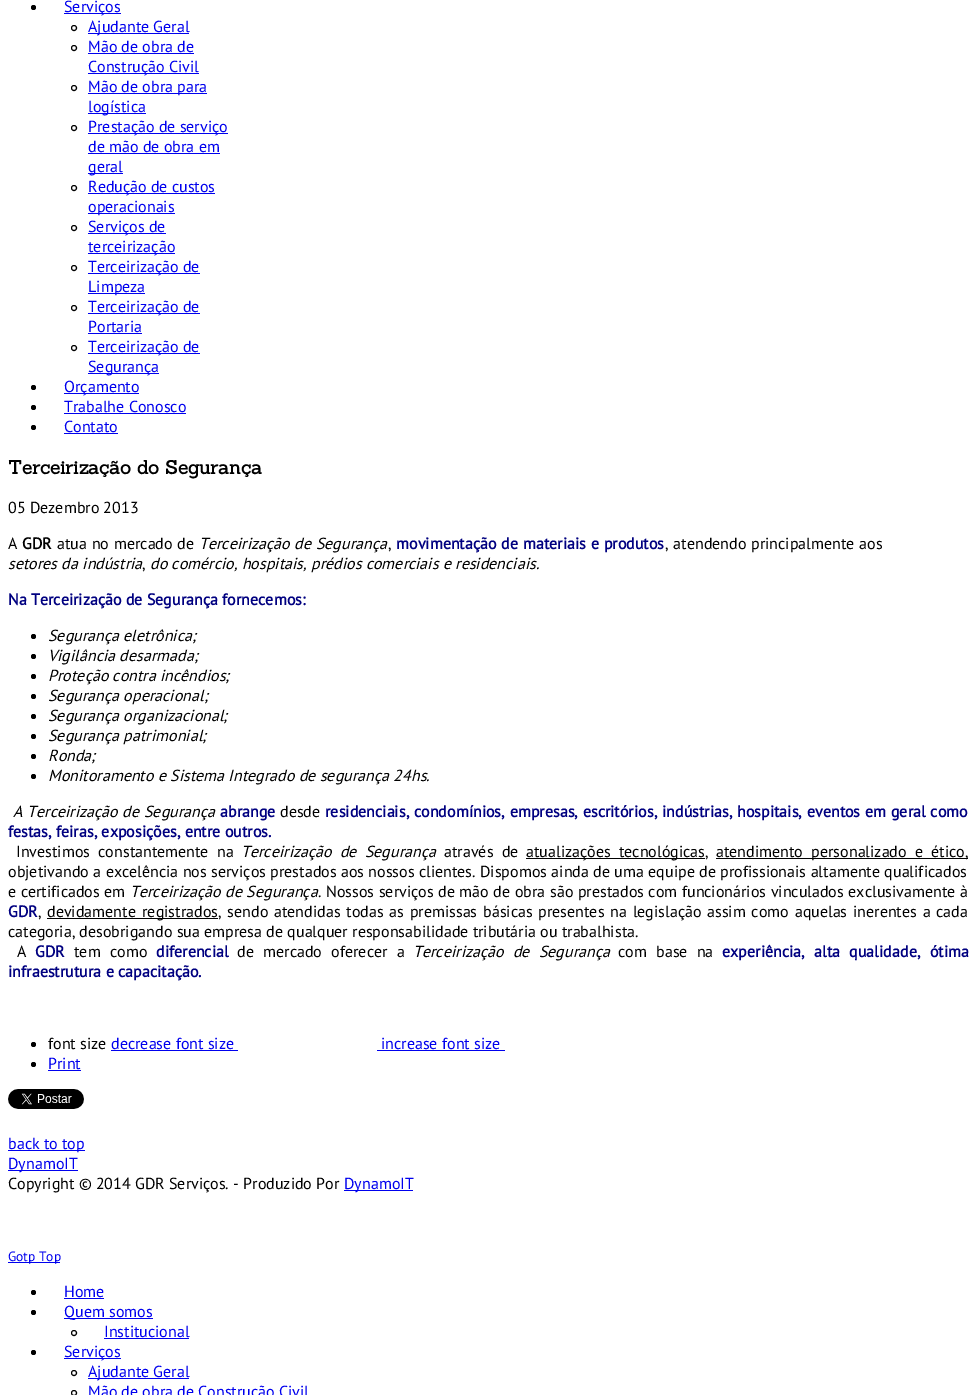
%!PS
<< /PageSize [976 1395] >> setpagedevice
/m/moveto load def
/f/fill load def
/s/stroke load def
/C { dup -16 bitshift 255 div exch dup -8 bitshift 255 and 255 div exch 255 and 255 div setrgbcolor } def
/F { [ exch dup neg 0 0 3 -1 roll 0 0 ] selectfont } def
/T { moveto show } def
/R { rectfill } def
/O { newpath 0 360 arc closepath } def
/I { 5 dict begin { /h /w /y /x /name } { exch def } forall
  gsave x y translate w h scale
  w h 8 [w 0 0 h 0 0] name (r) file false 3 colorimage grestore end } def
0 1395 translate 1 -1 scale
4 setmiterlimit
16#FFFFFF C
0 0 976 1395 R
16#000000 C
33.5 7.5 2.5 O f
16#0000EE C
64 13 57 1 R
/PTSans-Regular 16 F
(Serviços) 64 12 T
16#000000 C
74 28 2.5 O s
16#0000EE C
88 33 101 1 R
(Ajudante Geral) 88 32 T
16#000000 C
74 48 2.5 O s
16#0000EE C
(Mão de obra de) 88 52 T
88 53 106 1 R
88 73 111 1 R
(Construção Civil) 88 72 T
16#000000 C
74 88 2.5 O s
16#0000EE C
88 93 119 1 R
(Mão de obra para) 88 92 T
88 113 58 1 R
(logística) 88 112 T
16#000000 C
74 128 2.5 O s
16#0000EE C
88 133 140 1 R
(Prestação de serviço) 88 132 T
(de mão de obra em) 88 152 T
88 153 132 1 R
88 173 35 1 R
(geral) 88 172 T
16#000000 C
74 188 2.5 O s
16#0000EE C
88 193 127 1 R
(Redução de custos) 88 192 T
88 213 87 1 R
(operacionais) 88 212 T
16#000000 C
74 228 2.5 O s
16#0000EE C
88 233 78 1 R
(Serviços de) 88 232 T
88 253 87 1 R
(terceirização) 88 252 T
16#000000 C
74 268 2.5 O s
16#0000EE C
88 273 112 1 R
(Terceirização de) 88 272 T
88 293 57 1 R
(Limpeza) 88 292 T
16#000000 C
74 308 2.5 O s
16#0000EE C
88 313 112 1 R
(Terceirização de) 88 312 T
(Portaria) 88 332 T
88 333 54 1 R
16#000000 C
74 348 2.5 O s
16#0000EE C
88 353 112 1 R
(Terceirização de) 88 352 T
88 373 71 1 R
(Segurança) 88 372 T
16#000000 C
33.5 387.5 2.5 O f
16#0000EE C
64 393 75 1 R
(Orçamento) 64 392 T
16#000000 C
33.5 407.5 2.5 O f
16#0000EE C
(Trabalhe Conosco) 64 412 T
64 413 122 1 R
16#000000 C
33.5 427.5 2.5 O f
16#0000EE C
(Contato) 64 432 T
64 433 54 1 R
/Sanchez-Bold 18.75 F
16#000000 C
(Terceirização do Segurança) 8 474 T
/PTSans-Regular 16 F
(05 Dezembro 2013) 8 513 T
(A) 8 549 T
/PTSans-Bold 16 F
(GDR) 22 549 T
/PTSans-Regular 16 F
57 549 m .5 0 32 (atua no mercado de) widthshow
/PTSans-Italic 16 F
199 549 m .5 0 32 (Terceirização de Segurança) widthshow
/PTSans-Regular 16 F
(,) 388 549 T
/PTSans-Bold 16 F
16#000080 C
396 549 m .5 0 32 (movimentação de materiais e produtos) widthshow
/PTSans-Regular 16 F
16#000000 C
665 549 m .5 0 32 (, atendendo principalmente aos) widthshow
/PTSans-Italic 16 F
(setores da indústria) 8 569 T
/PTSans-Regular 16 F
(,) 142 569 T
/PTSans-Italic 16 F
(do comércio, hospitais, prédios comerciais e residenciais.) 150 569 T
/PTSans-Bold 16 F
16#000080 C
(Na Terceirização de Segurança fornecemos:) 8 605 T
16#000000 C
33.5 636.5 2.5 O f
/PTSans-Italic 16 F
(Segurança eletrônica;) 48 641 T
33.5 656.5 2.5 O f
(Vigilância desarmada;) 48 661 T
33.5 676.5 2.5 O f
(Proteção contra incêndios;) 48 681 T
33.5 696.5 2.5 O f
(Segurança operacional;) 48 701 T
33.5 716.5 2.5 O f
(Segurança organizacional;) 48 721 T
33.5 736.5 2.5 O f
(Segurança patrimonial;) 48 741 T
33.5 756.5 2.5 O f
(Ronda;) 48 761 T
33.5 776.5 2.5 O f
(Monitoramento e Sistema Integrado de segurança 24hs.) 48 781 T
13 817 m .5 0 32 (A Terceirização de Segurança) widthshow
/PTSans-Bold 16 F
16#000080 C
(abrange) 220 817 T
/PTSans-Regular 16 F
16#000000 C
(desde) 280 817 T
/PTSans-Bold 16 F
16#000080 C
325 817 m .5 0 32 (residenciais, condomínios, empresas, escritórios, indústrias, hospitais, eventos em geral como) widthshow
(festas, feiras, exposições, entre outros.) 8 837 T
/PTSans-Regular 16 F
16#000000 C
16 857 m 4 0 32 (Investimos constantemente na) widthshow
/PTSans-Italic 16 F
241 857 m 4 0 32 (Terceirização de Segurança) widthshow
/PTSans-Regular 16 F
444 857 m 4 0 32 (através de) widthshow
526 858 179 1 R
526 857 m 4 0 32 (atualizações tecnológicas) widthshow
(,) 705 857 T
716 858 252 1 R
716 857 m 4 0 32 (atendimento personalizado e ético,) widthshow
8 877 m .1 0 32 (objetivando a excelência nos serviços prestados aos nossos clientes. Dispomos ainda de uma equipe de profissionais altamente qualificados) widthshow
8 897 m .3 0 32 (e certificados em) widthshow
/PTSans-Italic 16 F
130 897 m .3 0 32 (Terceirização de Segurança) widthshow
/PTSans-Regular 16 F
318 897 m .3 0 32 (. Nossos serviços de mão de obra são prestados com funcionários vinculados exclusivamente à) widthshow
/PTSans-Bold 16 F
16#000080 C
(GDR) 8 917 T
/PTSans-Regular 16 F
16#000000 C
(,) 38 917 T
47 918 171 1 R
47 917 m 2 0 32 (devidamente registrados) widthshow
218 917 m 1.5 0 32 (, sendo atendidas todas as premissas básicas presentes na legislação assim como aquelas inerentes a cada) widthshow
(categoria, desobrigando sua empresa de qualquer responsabilidade tributária ou trabalhista.) 8 937 T
(A) 17 957 T
/PTSans-Bold 16 F
16#000080 C
(GDR) 35 957 T
/PTSans-Regular 16 F
16#000000 C
74 957 m 5 0 32 (tem como) widthshow
/PTSans-Bold 16 F
16#000080 C
(diferencial) 156 957 T
/PTSans-Regular 16 F
16#000000 C
237 957 m 5 0 32 (de mercado oferecer a) widthshow
/PTSans-Italic 16 F
413 957 m 5 0 32 (Terceirização de Segurança) widthshow
/PTSans-Regular 16 F
618 957 m 5 0 32 (com base na) widthshow
/PTSans-Bold 16 F
16#000080 C
722 957 m 5 0 32 (experiência, alta qualidade, ótima) widthshow
(infraestrutura e capacitação.) 8 977 T
16#000000 C
33.5 1044.5 2.5 O f
/PTSans-Regular 16 F
(font size) 48 1049 T
16#0000EE C
(decrease font size) 111 1049 T
111 1050 127 1 R
377 1050 128 1 R
(increase font size) 381 1049 T
16#000000 C
33.5 1064.5 2.5 O f
16#0000EE C
(Print) 48 1069 T
48 1070 33 1 R
(1.rgb) 8 1089 76 20 I
8 1150 77 1 R
(back to top) 8 1149 T
8 1170 70 1 R
(DynamoIT) 8 1169 T
16#000000 C
(Copyright © 2014 GDR Serviços. - Produzido Por) 8 1189 T
16#0000EE C
344 1190 69 1 R
(DynamoIT) 344 1189 T
8 1262 52 1 R
/PTSans-Regular 13.5 F
(Gotp Top) 8 1261 T
16#000000 C
33.5 1292.5 2.5 O f
/PTSans-Regular 16 F
16#0000EE C
(Home) 64 1297 T
64 1298 40 1 R
16#000000 C
33.5 1312.5 2.5 O f
16#0000EE C
64 1318 89 1 R
(Quem somos) 64 1317 T
16#000000 C
74 1333 2.5 O s
16#0000EE C
(Institucional) 104 1337 T
104 1338 85 1 R
16#000000 C
33.5 1352.5 2.5 O f
16#0000EE C
64 1358 57 1 R
(Serviços) 64 1357 T
16#000000 C
74 1373 2.5 O s
16#0000EE C
88 1378 101 1 R
(Ajudante Geral) 88 1377 T
16#000000 C
74 1393 2.5 O s
16#0000EE C
(Mão de obra de Construção Civil) 88 1397 T
showpage
